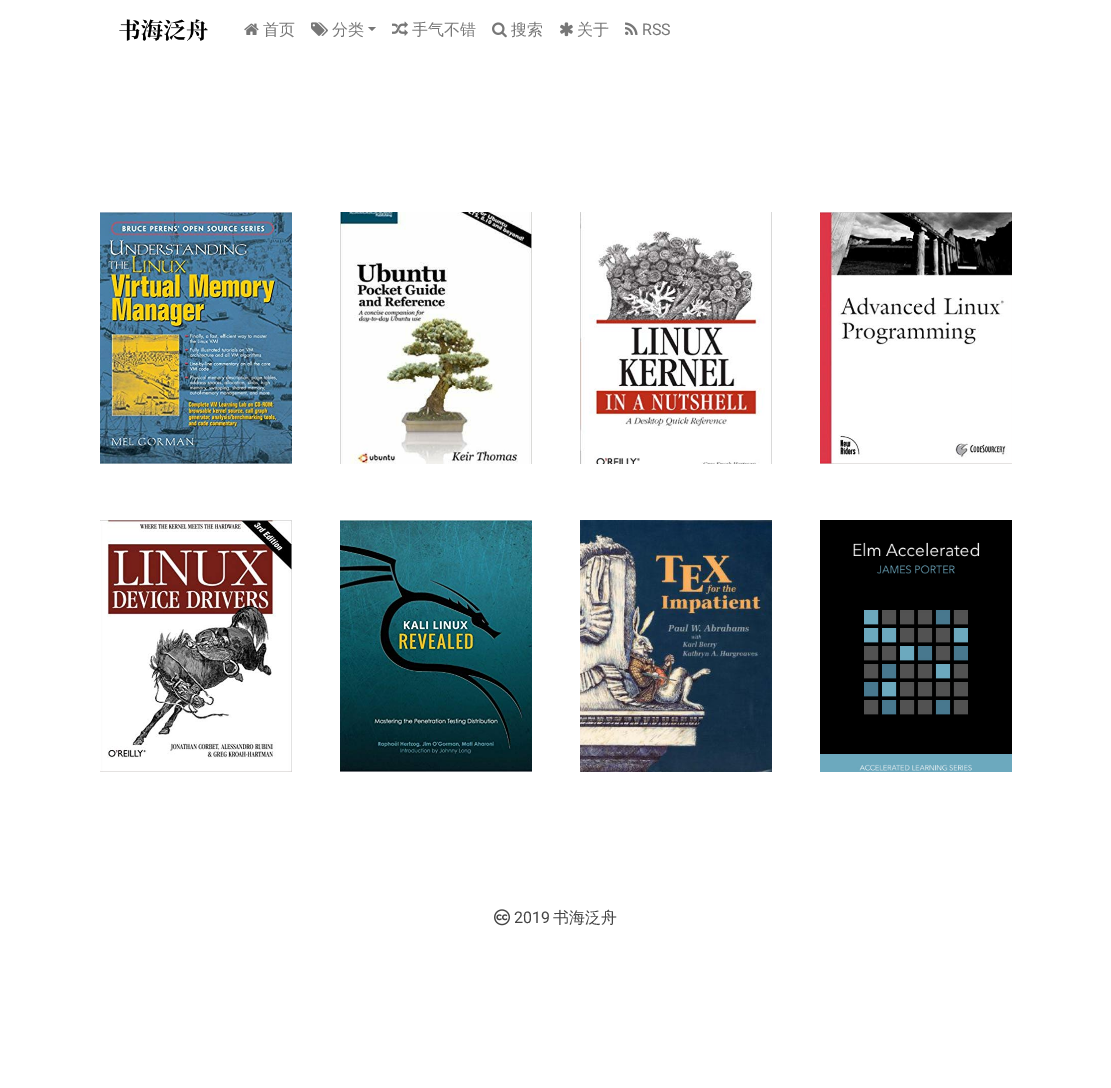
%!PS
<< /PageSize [1111 1088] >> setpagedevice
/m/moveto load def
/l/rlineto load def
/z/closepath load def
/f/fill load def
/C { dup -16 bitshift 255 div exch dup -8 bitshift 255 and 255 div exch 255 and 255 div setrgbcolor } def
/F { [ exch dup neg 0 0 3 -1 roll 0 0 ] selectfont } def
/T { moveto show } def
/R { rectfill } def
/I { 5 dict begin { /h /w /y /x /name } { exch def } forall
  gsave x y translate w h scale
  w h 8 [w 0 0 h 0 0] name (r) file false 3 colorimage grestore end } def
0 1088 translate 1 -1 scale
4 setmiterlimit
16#FFFFFF C
0 0 1111 1088 R
(1.rgb) 119 19 89 22 I
(2.rgb) 244 23 15 12 I
/WenQuanYiZenHei-Medium 16 F
16#777777 C
(首页) 263 35 T
(3.rgb) 311 22 17 14 I
(分类) 332 35 T
368 27 m 8 0 l -4 4 l z f
(4.rgb) 392 21 16 15 I
(手气不错) 412 35 T
(5.rgb) 492 22 15 16 I
(搜索) 511 35 T
(6.rgb) 560 22 13 15 I
(关于) 577 35 T
(7.rgb) 625 22 13 13 I
/Roboto-Regular 16 F
(RSS) 642 35 T
(8.rgb) 100 212 192 252 I
(9.rgb) 340 212 192 252 I
(10.rgb) 580 212 192 252 I
(11.rgb) 820 212 192 252 I
(12.rgb) 100 520 192 252 I
(13.rgb) 340 520 192 252 I
(14.rgb) 580 520 192 252 I
(15.rgb) 820 520 192 252 I
(16.rgb) 494 909 16 17 I
16#444444 C
(2019) 514 923 T
/WenQuanYiZenHei-Medium 16 F
(书海泛舟) 553 923 T
showpage
